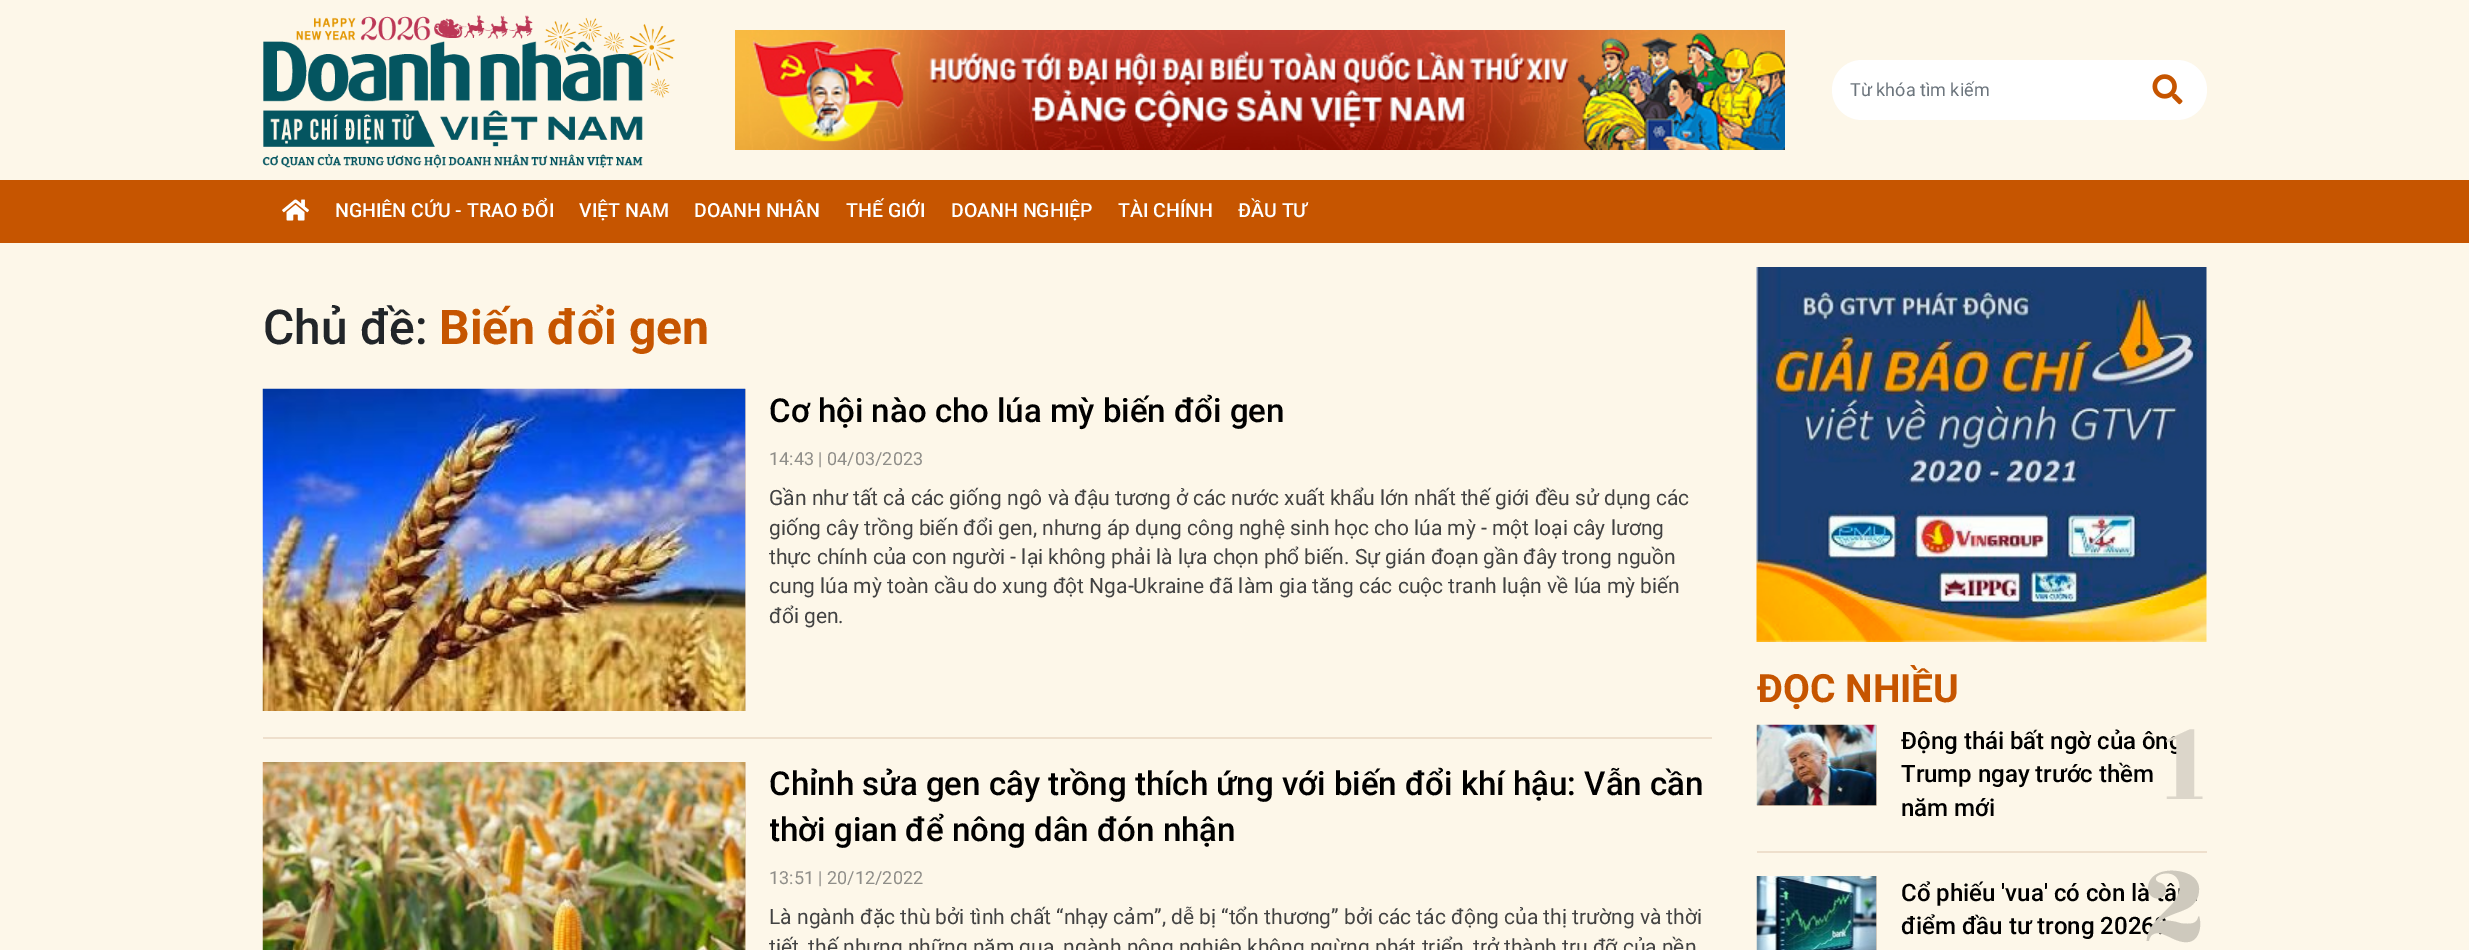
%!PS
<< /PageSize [2469 950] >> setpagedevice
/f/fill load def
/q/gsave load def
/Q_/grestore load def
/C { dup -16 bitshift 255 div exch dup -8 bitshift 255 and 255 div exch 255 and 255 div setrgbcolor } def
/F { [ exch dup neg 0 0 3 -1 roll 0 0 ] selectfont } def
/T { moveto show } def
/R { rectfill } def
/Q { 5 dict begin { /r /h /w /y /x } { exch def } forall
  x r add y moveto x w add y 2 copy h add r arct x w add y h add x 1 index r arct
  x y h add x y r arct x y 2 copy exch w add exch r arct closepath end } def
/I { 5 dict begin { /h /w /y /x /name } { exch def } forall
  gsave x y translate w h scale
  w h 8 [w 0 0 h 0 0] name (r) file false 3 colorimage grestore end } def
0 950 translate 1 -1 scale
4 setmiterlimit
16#FDF7E9 C
0 0 2469 950 R
(1.rgb) 262 15 413 153 I
(2.rgb) 735 30 1050 120 I
16#FFFFFF C
1832 60 375 60 30 Q f
/Roboto-Regular 18 F
16#6C757D C
(Từ khóa tìm kiếm) 1850 96 T
(3.rgb) 2152 74 31 31 I
16#C65500 C
0 180 2469 63 R
(4.rgb) 282 199 27 22 I
/Roboto-Medium 19.5 F
16#FFFFFF C
(NGHIÊN CỨU - TRAO ĐỔI) 335 217 T
(VIỆT NAM) 579 217 T
(DOANH NHÂN) 694 217 T
(THẾ GIỚI) 846 217 T
(DOANH NGHIỆP) 951 217 T
(TÀI CHÍNH) 1118 217 T
(ĐẦU TƯ) 1238 217 T
/Roboto-Medium 48 F
16#212529 C
(Chủ đề:) 263 344 T
/Roboto-Bold 48 F
16#C65500 C
(Biến đổi gen) 439 344 T
16#E8D3B9 C
745 389 1 322 R
(5.rgb) 262 388 484 323 I
/Roboto-Medium 33 F
16#000000 C
(Cơ hội nào cho lúa mỳ biến đổi gen) 769 422 T
/Roboto-Regular 18 F
16#8F8E89 C
(14:43 | 04/03/2023) 769 465 T
/Roboto-Regular 21 F
16#424242 C
(Gần như tất cả các giống ngô và đậu tương ở các nước xuất khẩu lớn nhất thế giới đều sử dụng các) 769 505 T
(giống cây trồng biến đổi gen, nhưng áp dụng công nghệ sinh học cho lúa mỳ - một loại cây lương) 769 535 T
(thực chính của con người - lại không phải là lựa chọn phổ biến. Sự gián đoạn gần đây trong nguồn) 769 564 T
(cung lúa mỳ toàn cầu do xung đột Nga-Ukraine đã làm gia tăng các cuộc tranh luận về lúa mỳ biến) 769 593 T
(đổi gen.) 769 623 T
16#EEDFCC C
263 737 1449 2 R
16#E8D3B9 C
745 762 1 188 R
(6.rgb) 262 762 484 188 I
/Roboto-Medium 33 F
16#000000 C
(Chỉnh sửa gen cây trồng thích ứng với biến đổi khí hậu: Vẫn cần) 769 795 T
q
770 762 942 92 rectclip
(thời gian để nông dân đón nhận) 769 841 T
Q_
/Roboto-Regular 18 F
16#8F8E89 C
(13:51 | 20/12/2022) 769 884 T
/Roboto-Regular 21 F
16#424242 C
(Là ngành đặc thù bởi tình chất “nhạy cảm”, dễ bị “tổn thương” bởi các tác động của thị trường và thời) 769 924 T
(tiết, thế nhưng những năm qua, ngành nông nghiệp không ngừng phát triển, trở thành trụ đỡ của nền) 769 954 T
(7.rgb) 1756 267 451 375 I
/Roboto-Bold 39 F
16#C65500 C
(ĐỌC NHIỀU) 1757 702 T
16#E8D3B9 C
1757 725 120 81 R
(8.rgb) 1756 724 121 82 I
q
1901 725 306 100 rectclip
/Roboto-Medium 24 F
16#000000 C
(Động thái bất ngờ của ông) 1901 749 T
Q_
/Roboto-Medium 24 F
16#000000 C
(Trump ngay trước thềm) 1901 782 T
(năm mới) 1901 816 T
/RozhaOne-Regular 120 F
16#DCD6CA C
(1) 2161 799 T
16#EEDFCC C
1757 851 450 2 R
16#E8D3B9 C
1876 876 1 74 R
(9.rgb) 1756 876 121 74 I
/Roboto-Medium 24 F
16#000000 C
(Cổ phiếu 'vua' có còn là tâm) 1901 901 T
(điểm đầu tư trong 2026?) 1901 934 T
/RozhaOne-Regular 120 F
16#CEC9BD C
(2) 2143 941 T
showpage
